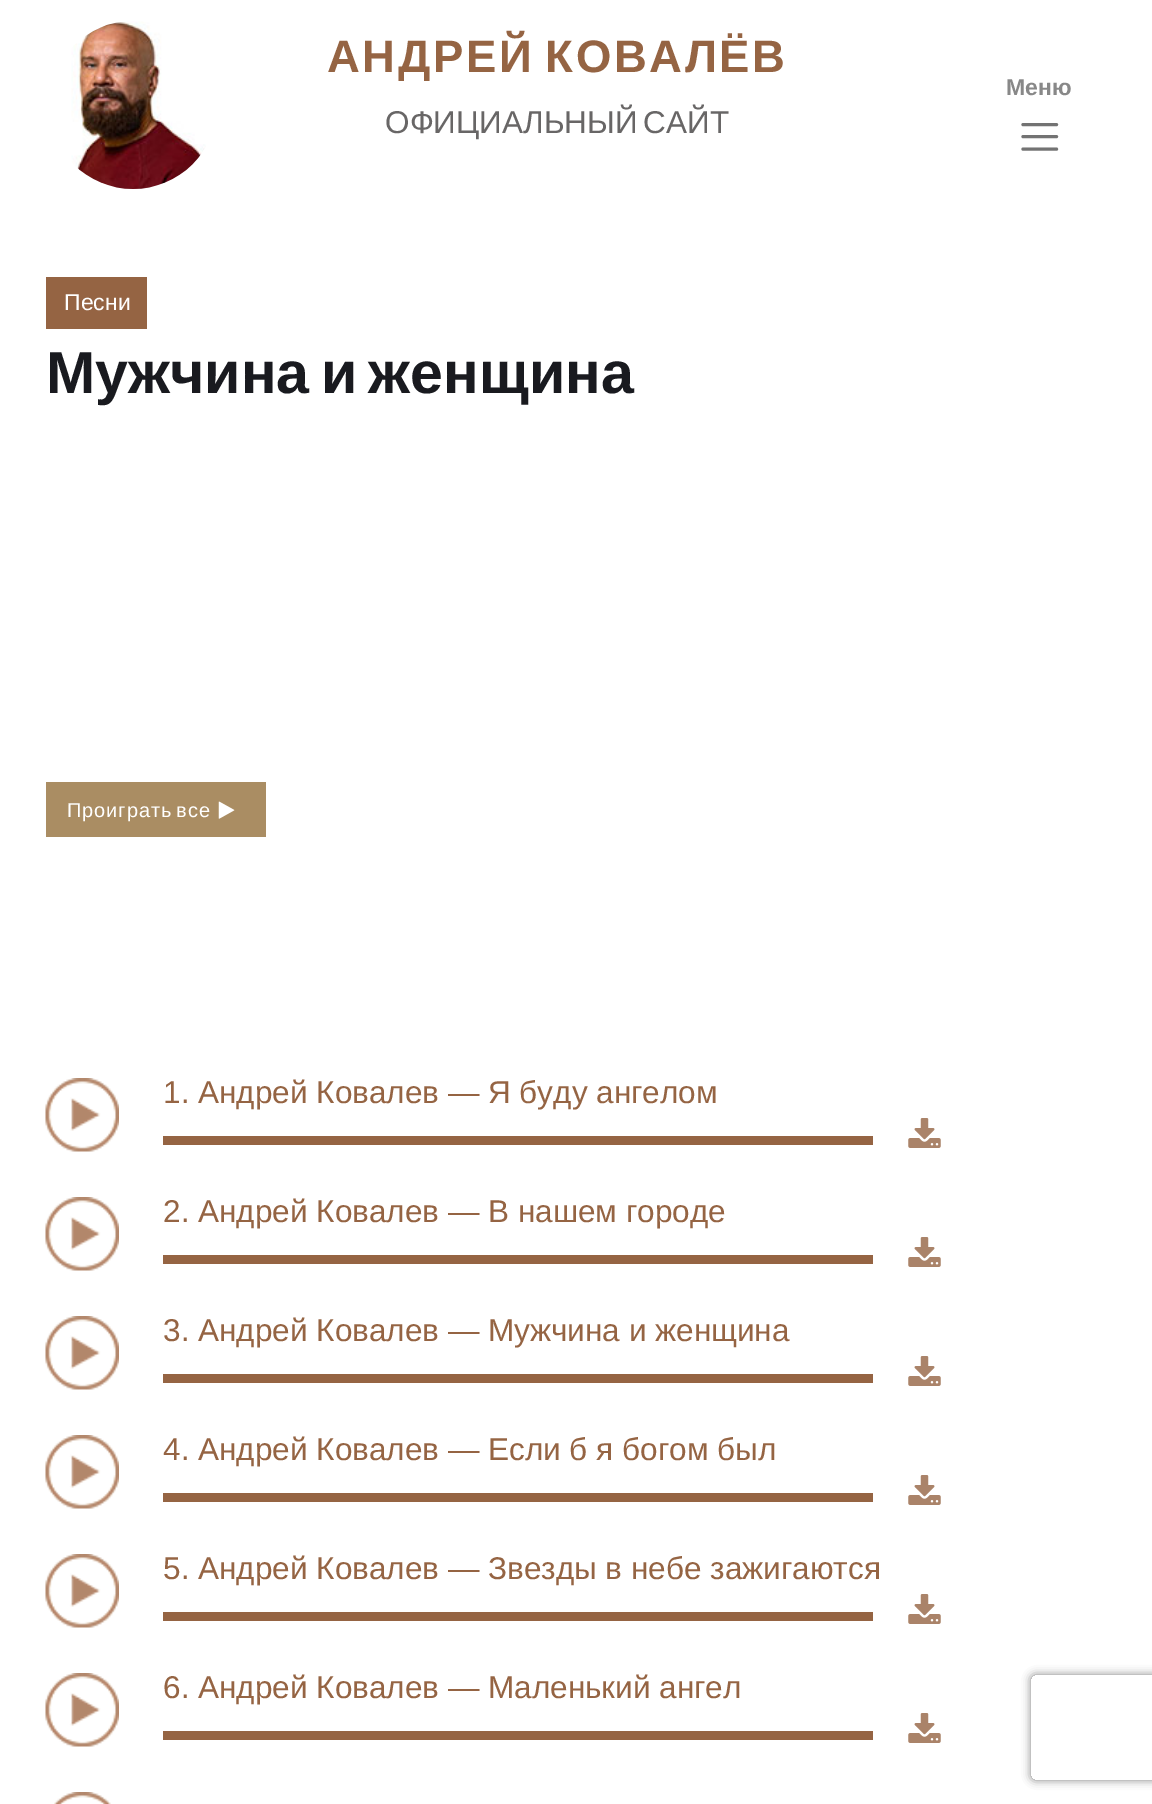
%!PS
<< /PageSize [1152 1804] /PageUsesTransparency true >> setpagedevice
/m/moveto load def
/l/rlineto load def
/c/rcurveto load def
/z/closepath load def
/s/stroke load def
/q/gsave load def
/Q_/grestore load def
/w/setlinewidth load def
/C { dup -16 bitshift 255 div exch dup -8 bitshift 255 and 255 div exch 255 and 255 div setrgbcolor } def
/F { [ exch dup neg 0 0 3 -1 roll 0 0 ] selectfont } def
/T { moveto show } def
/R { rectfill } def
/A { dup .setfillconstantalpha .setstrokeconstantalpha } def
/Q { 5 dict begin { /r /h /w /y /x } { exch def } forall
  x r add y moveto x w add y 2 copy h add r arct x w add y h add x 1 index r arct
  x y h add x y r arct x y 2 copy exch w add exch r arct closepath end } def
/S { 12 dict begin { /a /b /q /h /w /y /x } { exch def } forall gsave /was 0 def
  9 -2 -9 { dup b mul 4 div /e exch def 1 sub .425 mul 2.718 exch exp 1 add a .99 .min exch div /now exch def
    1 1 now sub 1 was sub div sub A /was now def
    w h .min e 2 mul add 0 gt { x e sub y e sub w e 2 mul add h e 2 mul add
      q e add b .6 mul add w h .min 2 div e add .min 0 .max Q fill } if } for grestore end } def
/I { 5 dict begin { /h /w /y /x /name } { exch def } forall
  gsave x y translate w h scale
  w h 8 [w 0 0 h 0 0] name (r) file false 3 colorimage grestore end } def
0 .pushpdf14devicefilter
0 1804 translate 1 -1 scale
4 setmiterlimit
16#FFFFFF C
0 0 1152 1804 R
(1.rgb) 71 21 135 168 I
/LiberationSans-Bold 45.5 F
16#956443 C
327 72 m -4 0 32 2.6 0 (АНДРЕЙ КОВАЛЁВ) awidthshow
/LiberationSans-Regular 31.5 F
16#686666 C
385 133 m -3 0 32 (ОФИЦИАЛЬНЫЙ САЙТ) widthshow
/LiberationSans-Bold 23 F
16#888888 C
(Меню) 1006 95 T
16#737373 C
3.1 w
1 setlinecap
1023 124.5 m 33.5 0 l 1023 136.5 m 33.5 0 l 1023 149 m 33.5 0 l s
16#956443 C
46 277 101 52 R
/LiberationSans-Regular 23 F
16#FFFFFF C
(Песни) 64 310 T
/LiberationSans-Bold 59.1 F
16#191A1F C
46 393 m -5 0 32 (Мужчина и женщина) widthshow
16#AA8D63 C
46 782 220 55 R
/LiberationSans-Regular 20 F
16#FFFFFF C
67 817 m -2 0 32 .9 0 (Проиграть все) awidthshow
(2.rgb) 218 801 17 18 I
(3.rgb) 45 1078 74 74 I
/LiberationSans-Regular 31.5 F
16#956443 C
(1. Андрей Ковалев — Я буду ангелом) 163 1103 T
163 1136 710 9 R
(4.rgb) 908 1118 33 30 I
(3.rgb) 45 1197 74 74 I
(2. Андрей Ковалев — В нашем городе) 163 1222 T
163 1255 710 9 R
(4.rgb) 908 1237 33 30 I
(3.rgb) 45 1316 74 74 I
(3. Андрей Ковалев — Мужчина и женщина) 163 1341 T
163 1374 710 9 R
(4.rgb) 908 1356 33 30 I
(3.rgb) 45 1435 74 74 I
(4. Андрей Ковалев — Если б я богом был) 163 1460 T
163 1493 710 9 R
(4.rgb) 908 1475 33 30 I
(3.rgb) 45 1554 74 74 I
(5. Андрей Ковалев — Звезды в небе зажигаются) 163 1579 T
163 1612 710 9 R
(4.rgb) 908 1594 33 30 I
(3.rgb) 45 1673 74 74 I
(6. Андрей Ковалев — Маленький ангел) 163 1698 T
163 1731 710 9 R
(4.rgb) 908 1713 33 30 I
(5.rgb) 54 1792 57 12 I
q
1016 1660 m 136 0 l 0 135 l -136 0 l z 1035 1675 m 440 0 l 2 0 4 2 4 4 c 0 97 l 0 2 -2 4 -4 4 c -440 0 l -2 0 -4 -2 -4 -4 c 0 -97 l 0 -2 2 -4 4 -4 c z eoclip newpath
16#808080 C
1031 1675 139 105 4 4.5 1 S
Q_
.poppdf14devicefilter showpage
